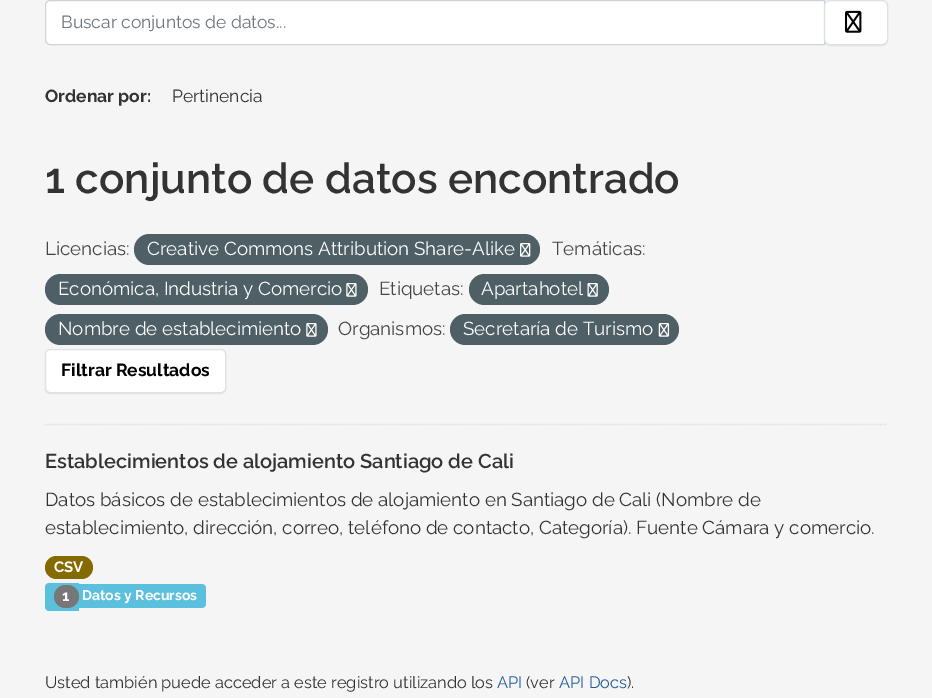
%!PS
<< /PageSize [932 698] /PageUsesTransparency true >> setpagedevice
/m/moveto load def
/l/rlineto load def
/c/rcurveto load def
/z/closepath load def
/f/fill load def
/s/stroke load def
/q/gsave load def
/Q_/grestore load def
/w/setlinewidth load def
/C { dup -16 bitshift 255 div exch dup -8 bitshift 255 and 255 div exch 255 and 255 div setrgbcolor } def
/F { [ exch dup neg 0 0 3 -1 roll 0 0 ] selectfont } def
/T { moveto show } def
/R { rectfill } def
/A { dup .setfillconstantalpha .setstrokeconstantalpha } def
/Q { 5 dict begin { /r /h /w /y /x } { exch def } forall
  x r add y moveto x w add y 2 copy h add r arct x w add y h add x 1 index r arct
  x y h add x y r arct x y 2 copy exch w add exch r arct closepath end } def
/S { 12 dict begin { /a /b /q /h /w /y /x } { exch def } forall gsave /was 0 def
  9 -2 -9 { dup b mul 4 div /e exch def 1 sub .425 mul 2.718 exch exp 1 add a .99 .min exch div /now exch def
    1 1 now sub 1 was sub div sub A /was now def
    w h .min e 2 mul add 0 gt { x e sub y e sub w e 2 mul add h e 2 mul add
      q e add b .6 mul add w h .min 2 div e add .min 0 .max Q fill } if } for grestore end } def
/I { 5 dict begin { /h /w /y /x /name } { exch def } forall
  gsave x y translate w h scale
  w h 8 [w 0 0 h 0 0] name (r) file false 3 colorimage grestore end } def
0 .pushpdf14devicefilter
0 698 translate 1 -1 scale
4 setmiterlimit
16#F5F5F5 C
0 0 932 698 R
16#DDDDDD C
1.2 w
[1.25 1.25] 0 setdash
45 424.5 m 842.5 0 l s
16#FFFFFF C
50 .5 m 774.5 0 l 0 44 l -774.5 0 l -2.5 0 -4.5 -2 -4.5 -4.5 c 0 -35 l 0 -2.5 2 -4.5 4.5 -4.5 c z q f Q_
16#CED4DA C
1 w
[] 0 setdash
s
/Raleway-Regular 17.5 F
16#6C757D C
(Buscar conjuntos de datos...) 61 28 T
16#000000 C
824 1 64 45 6 .5 .07 S
16#FFFFFF C
824.5 .5 63 44 5.5 Q q f Q_
16#DEE2E6 C
s
(1.rgb) 845 10 17 23 I
/Raleway-Bold 17.5 F
16#333333 C
(Ordenar por:) 45 102 T
/Raleway-Regular 17.5 F
(Pertinencia) 172 102 T
/Raleway-SemiBold 42.25 F
(1 conjunto de datos encontrado) 45 193 T
/Raleway-Regular 18.75 F
16#444444 C
(Licencias:) 45 255 T
16#4E5F65 C
134 234 406 31 15.5 Q f
16#FFFFFF C
(Creative Commons Attribution Share-Alike) 147 255 T
(2.rgb) 520 243 11 14 I
16#444444 C
(Temáticas:) 552 255 T
16#4E5F65 C
45 274 323 31 15.5 Q f
16#FFFFFF C
(Económica, Industria y Comercio) 58 295 T
(3.rgb) 346 283 11 14 I
16#444444 C
(Etiquetas:) 379 295 T
16#4E5F65 C
469 274 140 31 15.5 Q f
16#FFFFFF C
(Apartahotel) 481 295 T
(4.rgb) 587 283 11 14 I
16#4E5F65 C
45 314 283 31 15.5 Q f
16#FFFFFF C
(Nombre de establecimiento) 58 335 T
(3.rgb) 306 323 11 14 I
16#444444 C
(Organismos:) 338 335 T
16#4E5F65 C
450 314 229 31 15.5 Q f
16#FFFFFF C
(Secretaría de Turismo) 463 335 T
(5.rgb) 658 323 12 14 I
16#000000 C
45 350 181 44 5 .5 .07 S
16#FFFFFF C
45.5 349.5 180 43 4.5 Q q f Q_
16#DEE2E6 C
s
/Raleway-Bold 17.5 F
16#000000 C
(Filtrar Resultados) 61 376 T
/Raleway-SemiBold 20 F
16#333333 C
(Establecimientos de alojamiento Santiago de Cali) 45 468 T
/Raleway-Regular 18.75 F
(Datos básicos de establecimientos de alojamiento en Santiago de Cali \(Nombre de) 45 506 T
(establecimiento, dirección, correo, teléfono de contacto, Categoría\). Fuente Cámara y comercio.) 45 534 T
16#856A00 C
45 556 48 23 11.5 Q f
/Raleway-Bold 15 F
16#FFFFFF C
(CSV) 54 572 T
16#5BC0DE C
49 583 m 30 0 l 0 28 l -30 0 l -2 0 -4 -2 -4 -4 c 0 -20 l 0 -2 2 -4 4 -4 c z f
79 584 m 123 0 l 2 0 4 2 4 4 c 0 16 l 0 2 -2 4 -4 4 c -123 0 l z f
16#777777 C
54 585 25 23 11.5 Q f
16#FFFFFF C
(1) 62 601 T
/Raleway-Bold 14 F
(Datos y Recursos) 82 600 T
/Raleway-Regular 16.4 F
16#333333 C
(Usted también puede acceder a este registro utilizando los) 45 688 T
16#215A9A C
(API) 497 688 T
16#333333 C
(\(ver) 526 688 T
16#215A9A C
(API Docs) 559 688 T
16#333333 C
(\).) 627 688 T
.poppdf14devicefilter showpage
